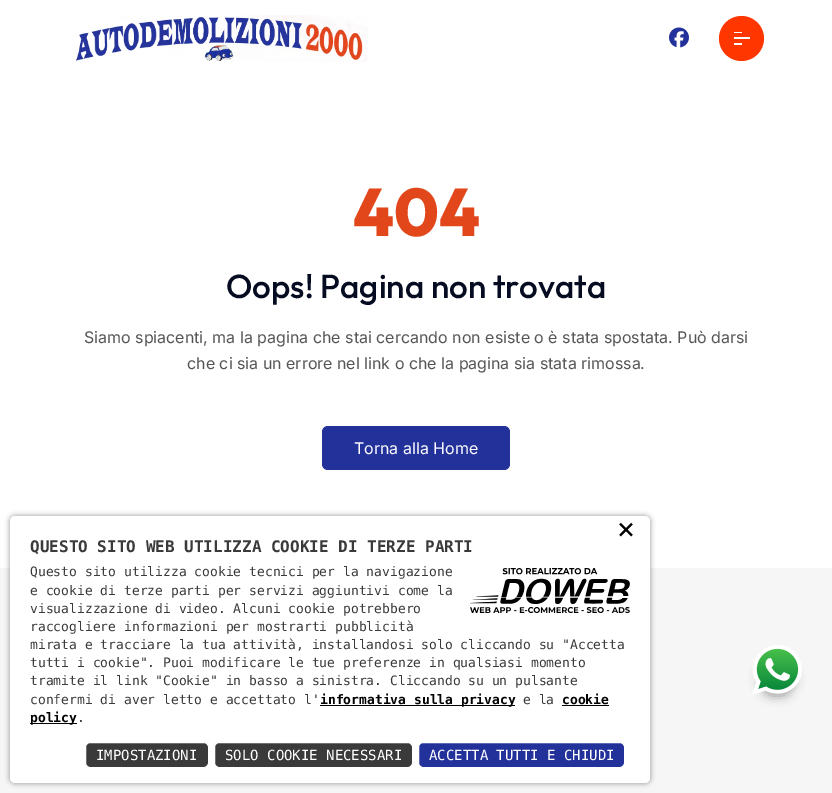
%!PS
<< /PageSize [832 793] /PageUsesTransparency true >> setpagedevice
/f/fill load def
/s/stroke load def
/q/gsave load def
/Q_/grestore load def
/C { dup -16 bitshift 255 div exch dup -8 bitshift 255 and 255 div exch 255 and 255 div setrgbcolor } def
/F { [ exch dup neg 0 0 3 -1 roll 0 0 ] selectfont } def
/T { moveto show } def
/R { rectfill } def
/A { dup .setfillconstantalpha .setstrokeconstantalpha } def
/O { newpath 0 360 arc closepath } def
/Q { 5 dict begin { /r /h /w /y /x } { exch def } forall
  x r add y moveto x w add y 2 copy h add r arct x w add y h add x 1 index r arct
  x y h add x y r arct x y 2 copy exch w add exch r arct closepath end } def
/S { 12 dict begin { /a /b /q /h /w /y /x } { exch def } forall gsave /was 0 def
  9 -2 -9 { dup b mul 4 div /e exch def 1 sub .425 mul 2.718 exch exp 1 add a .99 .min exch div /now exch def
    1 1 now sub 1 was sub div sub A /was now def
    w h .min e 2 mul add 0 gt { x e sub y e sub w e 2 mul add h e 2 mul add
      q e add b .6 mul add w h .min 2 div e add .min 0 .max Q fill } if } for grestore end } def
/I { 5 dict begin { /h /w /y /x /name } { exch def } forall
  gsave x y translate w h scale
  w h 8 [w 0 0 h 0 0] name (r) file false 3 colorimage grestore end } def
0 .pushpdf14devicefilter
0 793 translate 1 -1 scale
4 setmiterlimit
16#FFFFFF C
0 0 832 793 R
(1.rgb) 75 15 293 47 I
(2.rgb) 669 27 20 21 I
16#FF3600 C
741.5 38.5 22.5 O f
16#FFFFFF C
734 43 8 2 R
734 37 16 2 R
734 32 8 1 R
/Outfit-Thin 67 F
16#E2471B C
(404) 353 236 T
/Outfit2-Thin 33.25 F
16#050B20 C
(Oops! Pagina non trovata) 226 298 T
/Inter-Regular 16 F
16#555555 C
(Siamo spiacenti, ma la pagina che stai cercando non esiste o è stata spostata. Può darsi) 84 343 T
(che ci sia un errore nel link o che la pagina sia stata rimossa.) 187 369 T
16#23319A C
322 426 188 44 6 Q f
16#FFFFFF C
(Torna alla Home) 354 454 T
16#F6F6F6 C
0 568 832 225 R
16#000000 C
9 515 642 269 6 2.5 .3 S
16#FFFFFF C
10 516 640 267 5 Q f
/DejaVuSansMono-Regular 30 F
16#000000 C
(×) 617 539 T
/DejaVuSansMono-Bold 16 F
16#3A3A3B C
(QUESTO SITO WEB UTILIZZA COOKIE DI TERZE PARTI) 30 552 T
/DejaVuSansMono-Regular 13 F
(Questo sito utilizza cookie tecnici per la navigazione) 30 576 T
(3.rgb) 470 568 160 45 I
(e cookie di terze parti per servizi aggiuntivi come la) 30 595 T
(visualizzazione di video. Alcuni cookie potrebbero) 30 613 T
(raccogliere informazioni per mostrarti pubblicità) 30 631 T
(mirata e tracciare la tua attività, installandosi solo cliccando su "Accetta) 30 649 T
(tutti i cookie". Puoi modificare le tue preferenze in qualsiasi momento) 30 667 T
(tramite il link "Cookie" in basso a sinistra. Cliccando su un pulsante) 30 685 T
(confermi di aver letto e accettato l') 30 704 T
16#000000 C
320 705 195 1 R
/DejaVuSansMono-Bold 13 F
(informativa sulla privacy) 320 704 T
/DejaVuSansMono-Regular 13 F
16#3A3A3B C
(e la) 523 704 T
/DejaVuSansMono-Bold 13 F
16#000000 C
(cookie) 562 704 T
562 705 47 1 R
30 723 47 1 R
(policy) 30 722 T
/DejaVuSansMono-Regular 13 F
16#3A3A3B C
(.) 77 722 T
85.5 742.5 123 25 4.5 Q q f Q_
16#FFFFFF C
s
/DejaVuSansMono-Regular 14 F
(IMPOSTAZIONI) 96 760 T
16#3A3A3B C
214.5 742.5 198 25 4.5 Q q f Q_
16#FFFFFF C
s
(SOLO COOKIE NECESSARI) 225 760 T
16#23319A C
418.5 742.5 206 25 4.5 Q q f Q_
16#FFFFFF C
s
(ACCETTA TUTTI E CHIUDI) 429 760 T
16#000000 C
759 662 36 34 17 5 .4 S
(4.rgb) 752 645 50 50 I
.poppdf14devicefilter showpage
